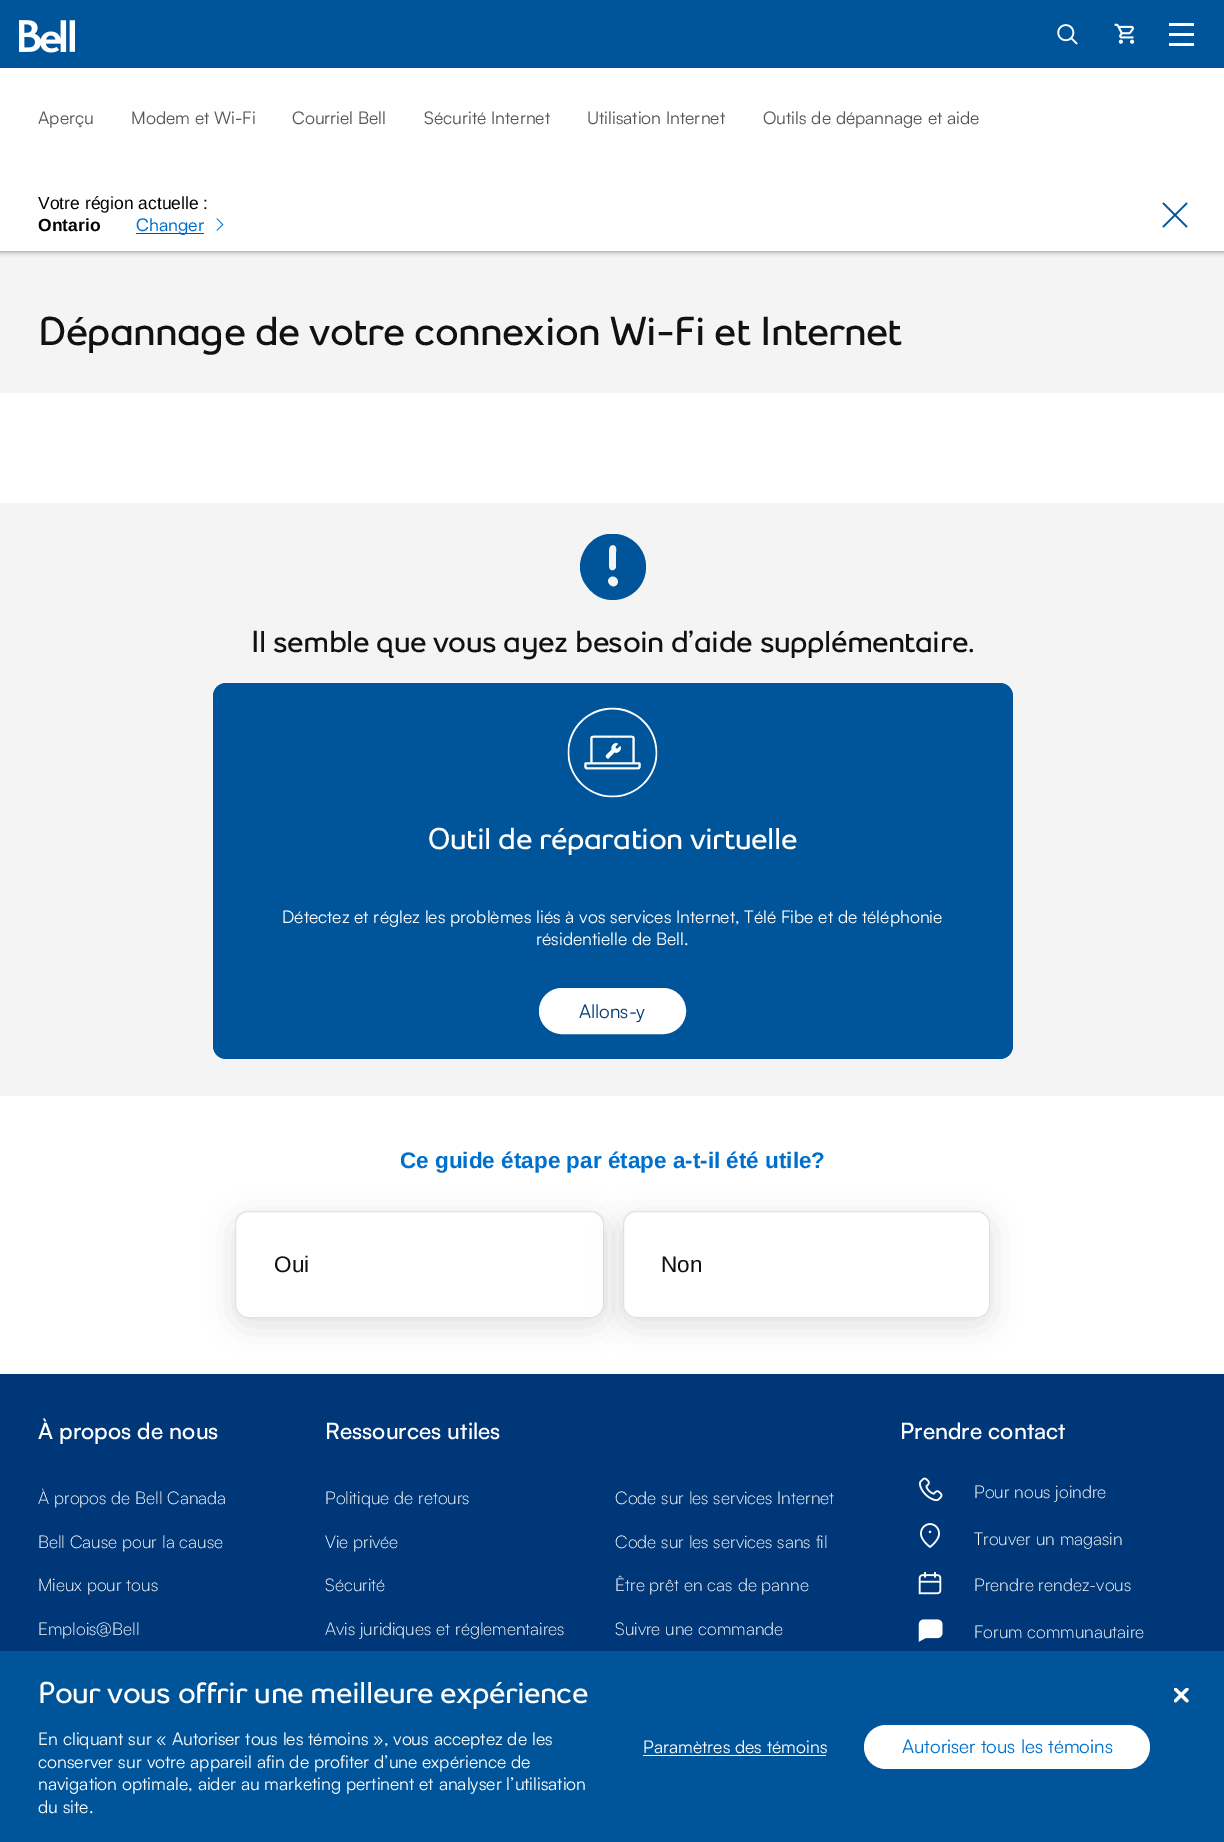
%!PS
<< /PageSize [1224 1842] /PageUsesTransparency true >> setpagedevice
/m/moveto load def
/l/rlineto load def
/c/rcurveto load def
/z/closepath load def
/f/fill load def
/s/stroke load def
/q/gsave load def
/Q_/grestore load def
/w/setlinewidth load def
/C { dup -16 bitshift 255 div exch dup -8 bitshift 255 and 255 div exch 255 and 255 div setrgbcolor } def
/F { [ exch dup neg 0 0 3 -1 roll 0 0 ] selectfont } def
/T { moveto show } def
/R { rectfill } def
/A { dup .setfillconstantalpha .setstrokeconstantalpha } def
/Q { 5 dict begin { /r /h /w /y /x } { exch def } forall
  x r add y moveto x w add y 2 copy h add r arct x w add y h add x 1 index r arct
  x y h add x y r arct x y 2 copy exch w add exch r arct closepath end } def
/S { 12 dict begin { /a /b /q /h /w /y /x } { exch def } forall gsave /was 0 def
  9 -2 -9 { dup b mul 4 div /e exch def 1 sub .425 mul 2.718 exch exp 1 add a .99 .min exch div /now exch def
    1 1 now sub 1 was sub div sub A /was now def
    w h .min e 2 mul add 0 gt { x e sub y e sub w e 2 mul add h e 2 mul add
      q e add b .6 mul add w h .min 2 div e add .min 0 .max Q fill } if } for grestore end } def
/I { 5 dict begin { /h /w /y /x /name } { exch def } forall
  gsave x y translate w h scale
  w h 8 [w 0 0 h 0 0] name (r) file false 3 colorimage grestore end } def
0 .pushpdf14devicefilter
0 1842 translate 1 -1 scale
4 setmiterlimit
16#003778 C
0 0 1224 1842 R
16#00549A C
0 0 1224 68 R
(1.rgb) 19 20 56 33 I
(2.rgb) 1057 24 21 21 I
(3.rgb) 1114 23 21 21 I
16#FFFFFF C
1169 23 25 3 R
1169 33 25 3 R
1169 43 25 3 R
16#F4F4F4 C
0 251 1224 142 R
16#000000 C
0 174 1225 77 0 3 .5 S
16#FFFFFF C
0 68 1224 183 R
/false-Regular 17.5 F
16#555555 C
(Aperçu) 38 124 T
(Modem et Wi-Fi) 131 124 T
(Courriel Bell) 292 124 T
(Sécurité Internet) 424 124 T
(Utilisation Internet) 587 124 T
(Outils de dépannage et aide) 763 124 T
/LiberationSans-Regular 17.5 F
16#000000 C
(Votre région actuelle :) 38 209 T
/LiberationSans-Bold 17.5 F
(Ontario) 38 231 T
16#00549A C
136 233 68 1 R
/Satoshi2-Regular 17.5 F
16#0070CE C
(Changer) 136 231 T
(4.rgb) 216 218 8 13 I
(5.rgb) 1162 202 26 26 I
16#FFFFFF C
0 393 1224 981 R
/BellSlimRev-Black 40 F
16#111111 C
38 345 m -.6 0 (Dépannage de votre connexion Wi-Fi et Internet) ashow
16#F4F4F4 C
0 503 1224 593 R
q
580 534 66 66 rectclip
16#00549A C
646 567 m 0 -32 -42 -46 -60 -19 c -4 6 -6 12 -6 19 c 0 6 2 13 6 18 c 18 28 60 14 60 -18 c z 609 567 m 0 -12 l 0 -4 -1 -10 4 -10 c 5 0 3 7 3 10 c 0 13 l -2 4 -7 3 -7 -1 c z 617 585 m -5 5 -12 -3 -8 -7 c 5 -5 12 2 8 7 c z f
Q_
/BellSlimRev-Black 30 F
16#111111 C
251 652 m -.5 0 (Il semble que vous ayez besoin d’aide supplémentaire.) ashow
16#00549A C
213 683 800 376 13 Q f
(6.rgb) 567 707 91 91 I
16#FFFFFF C
428 849 m -.5 0 (Outil de réparation virtuelle) ashow
/Satoshi-Regular 17.5 F
(Détectez et réglez les problèmes liés à vos services Internet, Télé Fibe et de téléphonie) 282 923 T
(résidentielle de Bell.) 536 945 T
540.5 989.5 144 43 21.5 Q q f Q_
3 w
s
/Satoshi-Regular 18.75 F
16#003778 C
(Allons-y) 579 1018 T
/LiberationSans-Bold 22.5 F
16#0070CE C
(Ce guide étape par étape a-t-il été utile?) 400 1168 T
16#000000 C
235 1219 369 106 13 15.5 .12 S
16#FFFFFF C
235.5 1211.5 368 106 12.5 Q q f Q_
16#E1E1E1 C
1 w
s
/LiberationSans-Regular 22.5 F
16#111111 C
(Oui) 274 1272 T
16#000000 C
623 1219 367 106 13 15.5 .12 S
16#FFFFFF C
623.5 1211.5 366 106 12.5 Q q f Q_
16#E1E1E1 C
s
16#111111 C
(Non) 661 1272 T
/Satoshi-Medium 22.5 F
16#FFFFFF C
(À propos de nous) 38 1439 T
/Satoshi-Light 17.5 F
(À propos de Bell Canada) 38 1504 T
(Bell Cause pour la cause) 38 1548 T
(Mieux pour tous) 38 1591 T
(Emplois@Bell) 38 1635 T
/Satoshi-Medium 22.5 F
(Ressources utiles) 325 1439 T
/Satoshi-Light 17.5 F
(Politique de retours) 325 1504 T
(Code sur les services Internet) 615 1504 T
(Vie privée) 325 1548 T
(Code sur les services sans fil) 615 1548 T
(Sécurité) 325 1591 T
(Être prêt en cas de panne) 615 1591 T
(Avis juridiques et réglementaires) 325 1635 T
(Suivre une commande) 615 1635 T
/Satoshi-Medium 22.5 F
(Prendre contact) 900 1439 T
(7.rgb) 919 1477 24 25 I
/Satoshi-Light 17.5 F
(Pour nous joindre) 974 1498 T
(8.rgb) 920 1523 20 25 I
(Trouver un magasin) 974 1545 T
(9.rgb) 918 1572 24 23 I
(Prendre rendez-vous) 974 1591 T
(10.rgb) 918 1619 25 23 I
(Forum communautaire) 974 1638 T
16#00549A C
0 1651 1224 191 R
/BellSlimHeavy-Black 30 F
16#FFFFFF C
38 1703 m -.5 0 (Pour vous offrir une meilleure expérience) ashow
/Satoshi-Regular 17.5 F
(En cliquant sur « Autoriser tous les témoins », vous acceptez de les) 38 1745 T
(conserver sur votre appareil afin de profiter d’une expérience de) 38 1768 T
(navigation optimale, aider au marketing pertinent et analyser l’utilisation) 38 1790 T
(du site.) 38 1813 T
(Paramètres des témoins) 643 1753 T
643 1755 183 1 R
864 1725 286 44 22 Q f
/Satoshi-Regular 18.75 F
16#0070CE C
(Autoriser tous les témoins) 902 1753 T
(11.rgb) 1174 1689 14 14 I
(12.rgb) 1174 1688 15 15 I
.poppdf14devicefilter showpage
